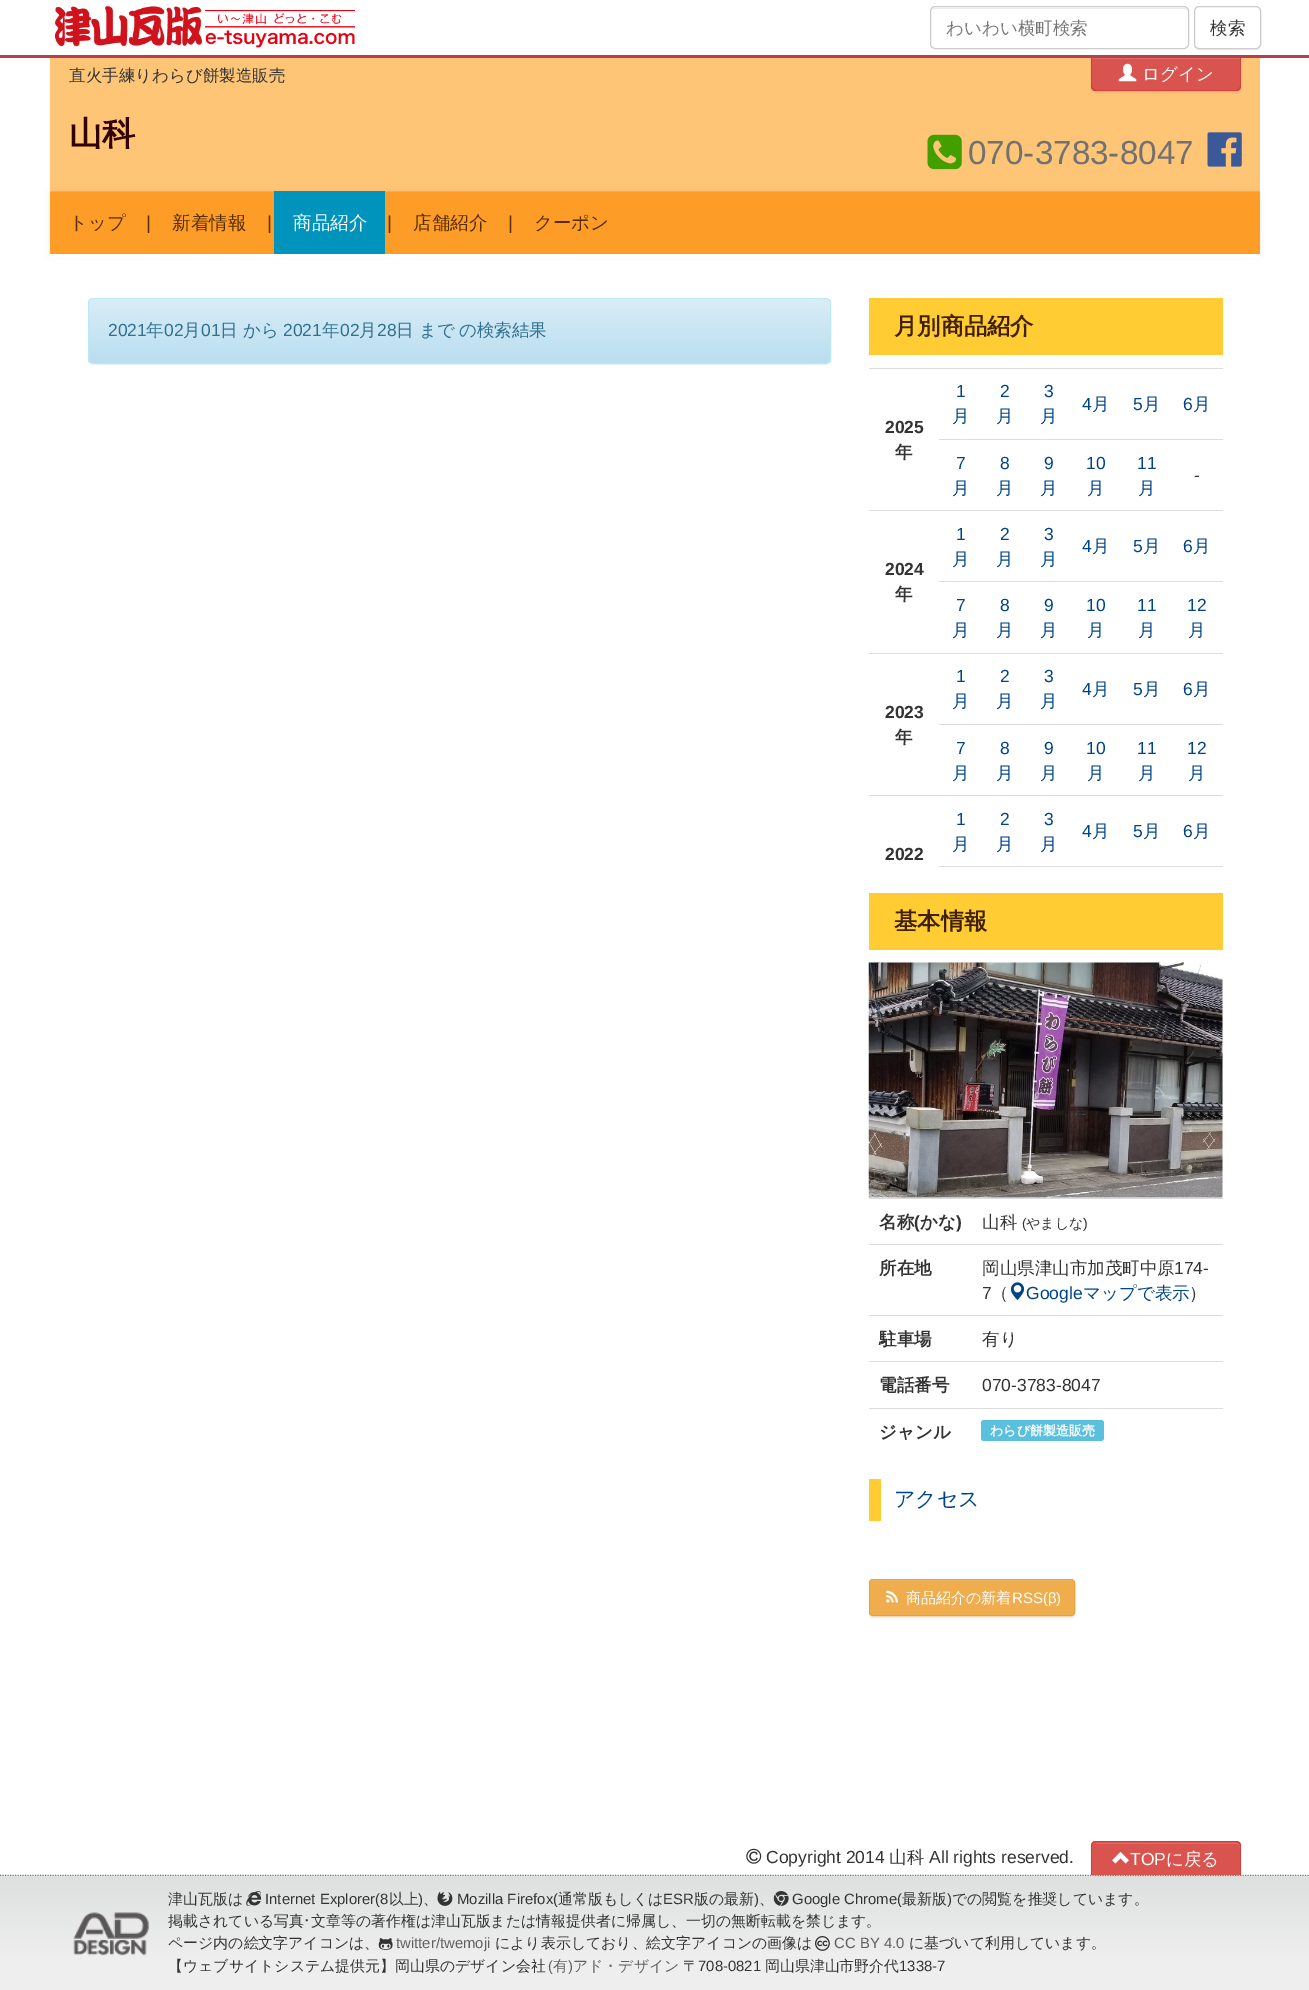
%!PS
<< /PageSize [1309 1990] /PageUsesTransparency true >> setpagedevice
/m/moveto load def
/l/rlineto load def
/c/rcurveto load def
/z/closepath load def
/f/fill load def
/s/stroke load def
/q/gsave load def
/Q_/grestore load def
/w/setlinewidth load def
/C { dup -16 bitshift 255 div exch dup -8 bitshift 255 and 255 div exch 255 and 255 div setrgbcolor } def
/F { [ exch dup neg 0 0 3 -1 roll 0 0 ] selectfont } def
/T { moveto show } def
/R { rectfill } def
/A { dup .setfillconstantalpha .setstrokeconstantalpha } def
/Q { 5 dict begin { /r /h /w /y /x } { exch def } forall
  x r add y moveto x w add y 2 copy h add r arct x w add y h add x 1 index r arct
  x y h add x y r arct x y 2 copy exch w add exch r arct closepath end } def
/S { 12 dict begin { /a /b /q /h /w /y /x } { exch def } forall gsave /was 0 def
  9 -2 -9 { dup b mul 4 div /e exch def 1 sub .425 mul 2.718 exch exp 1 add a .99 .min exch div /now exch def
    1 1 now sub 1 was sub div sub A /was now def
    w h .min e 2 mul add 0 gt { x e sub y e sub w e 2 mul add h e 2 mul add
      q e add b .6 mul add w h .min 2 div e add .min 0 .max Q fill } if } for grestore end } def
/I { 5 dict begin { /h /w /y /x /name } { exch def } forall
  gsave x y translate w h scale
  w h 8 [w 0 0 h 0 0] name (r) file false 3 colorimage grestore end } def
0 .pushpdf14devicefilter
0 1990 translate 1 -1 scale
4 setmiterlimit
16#FFFFFF C
0 0 1309 1990 R
16#B5404B C
0 55 1309 3 R
(1.rgb) 55 6 300 42 I
16#ECECEC C
935 9 m 249 0 l 2 0 4 1 4 3 c 0 -2 -2 -4 -4 -4 c -249 0 l -2 0 -4 2 -4 4 c 0 -2 2 -3 4 -3 c z f
16#CCCCCC C
930.5 6.5 258 42 4.5 Q s
/WenQuanYiZenHei-Medium 17.5 F
16#777777 C
(わいわい横町検索) 946 34 T
16#000000 C
1194 8 67 42 5 .5 .07 S
16#FFFFFF C
1194.5 6.5 66 42 4.5 Q q f Q_
16#CCCCCC C
s
16#333333 C
(検索) 1210 34 T
16#FEC576 C
50 58 1210 133 R
/WenQuanYiZenHei-Medium 16.5 F
16#333333 C
(直火手練りわらび餅製造販売) 69 81 T
16#000000 C
1091 59 150 34 5 .5 .07 S
16#D9534F C
1091 58 m 150 0 l 0 28 l 0 3 -2 5 -5 5 c -140 0 l -3 0 -5 -2 -5 -5 c z f
16#DF6D69 C
1093 58 147 1 R
16#D43F3A C
1091 58 m 150 0 l 0 28 l 0 3 -2 5 -5 5 c -140 0 l -3 0 -5 -2 -5 -5 c z 1092 58 m 148 0 l 0 28 l 0 2 -2 4 -4 4 c -140 0 l -2 0 -4 -2 -4 -4 c z eofill
(2.rgb) 1118 63 19 19 I
/WenQuanYiZenHei-Medium 17.5 F
16#FFFFFF C
(ログイン) 1142 80 T
/WenQuanYiZenHei-Bold 33.25 F
16#330000 C
(山科) 69 145 T
(3.rgb) 927 134 35 36 I
/LiberationSans-Regular 33.25 F
16#727171 C
(070-3783-8047) 968 164 T
(4.rgb) 1207 132 35 35 I
16#000000 C
50 193 1210 62 0 3 .07 S
16#FD9C26 C
50 192 1210 62 R
16#FDAB47 C
50 191 1210 1 R
/WenQuanYiZenHei-Medium 18.5 F
16#572C00 C
(トップ) 69 229 T
/LiberationSans-Regular 18.5 F
(|) 146 229 T
/WenQuanYiZenHei-Medium 18.5 F
(新着情報) 172 229 T
/LiberationSans-Regular 18.5 F
(|) 267 229 T
16#0093BB C
274 191 111 63 R
/WenQuanYiZenHei-Medium 18.5 F
16#FFFFFF C
(商品紹介) 293 229 T
/LiberationSans-Regular 18.5 F
16#572C00 C
(|) 387 229 T
/WenQuanYiZenHei-Medium 18.5 F
(店舗紹介) 413 229 T
/LiberationSans-Regular 18.5 F
(|) 508 229 T
/WenQuanYiZenHei-Medium 18.5 F
(クーポン) 534 229 T
16#FFFFFF C
50 254 1210 4 R
1260 254 1 2 R
49 254 1 2 R
16#000000 C
88 299 743 66 5 1 .05 S
q
88 298 743 66 5 Q clip newpath
q 88 299 m 743 0 l 0 64 l -743 0 l z clip newpath
<< /ShadingType 2 /ColorSpace /DeviceRGB /Coords [459 299 459 363] /Extend [true true] /Function << /FunctionType 2 /Domain [0 1] /C0 [.851 .929 .969] /C1 [.725 .871 .941] /N 1 >> >> shfill Q_
Q_
16#E2F1F9 C
92 300 m 734 0 l 2 0 4 2 4 4 c 0 -3 -1 -5 -4 -5 c -733 0 l -3 1 l -1 1 l 0 3 l 0 -2 1 -4 3 -4 c z f
16#BCE8F1 C
88.5 298.5 742 65 4.5 Q s
/LiberationSans-Regular 17.5 F
16#31708F C
(2021) 108 336 T
/WenQuanYiZenHei-Medium 17.5 F
(年) 146 336 T
/LiberationSans-Regular 17.5 F
(02) 164 336 T
/WenQuanYiZenHei-Medium 17.5 F
(月) 183 336 T
/LiberationSans-Regular 17.5 F
(01) 201 336 T
/WenQuanYiZenHei-Medium 17.5 F
(日 から) 220 336 T
/LiberationSans-Regular 17.5 F
(2021) 283 336 T
/WenQuanYiZenHei-Medium 17.5 F
(年) 322 336 T
/LiberationSans-Regular 17.5 F
(02) 340 336 T
/WenQuanYiZenHei-Medium 17.5 F
(月) 359 336 T
/LiberationSans-Regular 17.5 F
(28) 377 336 T
/WenQuanYiZenHei-Medium 17.5 F
(日 まで) 396 336 T
(の検索結果) 459 336 T
16#FFCC33 C
869 298 354 57 R
/WenQuanYiZenHei-Bold 23.25 F
16#402000 C
(月別商品紹介) 894 334 T
/LiberationSans-Regular 17.5 F
16#004488 C
(1) 956 397 T
/WenQuanYiZenHei-Medium 17.5 F
(月) 952 422 T
/LiberationSans-Regular 17.5 F
(2) 1000 397 T
/WenQuanYiZenHei-Medium 17.5 F
(月) 996 422 T
/LiberationSans-Regular 17.5 F
(3) 1044 397 T
/WenQuanYiZenHei-Medium 17.5 F
(月) 1040 422 T
/LiberationSans-Regular 17.5 F
(4) 1082 410 T
/WenQuanYiZenHei-Medium 17.5 F
(月) 1092 410 T
/LiberationSans-Regular 17.5 F
(5) 1133 410 T
/WenQuanYiZenHei-Medium 17.5 F
(月) 1143 410 T
16#DDDDDD C
869 368 354 1 R
/LiberationSans-Regular 17.5 F
16#004488 C
(6) 1183 410 T
/WenQuanYiZenHei-Medium 17.5 F
(月) 1193 410 T
/LiberationSans-Bold 17.5 F
16#333333 C
(2025) 885 433 T
/WenQuanYiZenHei-Bold 17.5 F
(年) 895 458 T
/LiberationSans-Regular 17.5 F
16#004488 C
(7) 956 469 T
/WenQuanYiZenHei-Medium 17.5 F
(月) 952 494 T
/LiberationSans-Regular 17.5 F
(8) 1000 469 T
/WenQuanYiZenHei-Medium 17.5 F
(月) 996 494 T
/LiberationSans-Regular 17.5 F
(9) 1044 469 T
/WenQuanYiZenHei-Medium 17.5 F
(月) 1040 494 T
/LiberationSans-Regular 17.5 F
(10) 1086 469 T
/WenQuanYiZenHei-Medium 17.5 F
(月) 1087 494 T
/LiberationSans-Regular 17.5 F
(11) 1137 469 T
/WenQuanYiZenHei-Medium 17.5 F
(月) 1138 494 T
16#DDDDDD C
939 439 284 1 R
/LiberationSans-Regular 17.5 F
16#333333 C
(-) 1194 481 T
16#004488 C
(1) 956 540 T
/WenQuanYiZenHei-Medium 17.5 F
(月) 952 565 T
/LiberationSans-Regular 17.5 F
(2) 1000 540 T
/WenQuanYiZenHei-Medium 17.5 F
(月) 996 565 T
/LiberationSans-Regular 17.5 F
(3) 1044 540 T
/WenQuanYiZenHei-Medium 17.5 F
(月) 1040 565 T
/LiberationSans-Regular 17.5 F
(4) 1082 552 T
/WenQuanYiZenHei-Medium 17.5 F
(月) 1092 552 T
/LiberationSans-Regular 17.5 F
(5) 1133 552 T
/WenQuanYiZenHei-Medium 17.5 F
(月) 1143 552 T
16#DDDDDD C
869 510 354 1 R
/LiberationSans-Regular 17.5 F
16#004488 C
(6) 1183 552 T
/WenQuanYiZenHei-Medium 17.5 F
(月) 1193 552 T
/LiberationSans-Bold 17.5 F
16#333333 C
(2024) 885 575 T
/WenQuanYiZenHei-Bold 17.5 F
(年) 895 600 T
/LiberationSans-Regular 17.5 F
16#004488 C
(7) 956 611 T
/WenQuanYiZenHei-Medium 17.5 F
(月) 952 636 T
/LiberationSans-Regular 17.5 F
(8) 1000 611 T
/WenQuanYiZenHei-Medium 17.5 F
(月) 996 636 T
/LiberationSans-Regular 17.5 F
(9) 1044 611 T
/WenQuanYiZenHei-Medium 17.5 F
(月) 1040 636 T
/LiberationSans-Regular 17.5 F
(10) 1086 611 T
/WenQuanYiZenHei-Medium 17.5 F
(月) 1087 636 T
/LiberationSans-Regular 17.5 F
(11) 1137 611 T
/WenQuanYiZenHei-Medium 17.5 F
(月) 1138 636 T
16#DDDDDD C
939 581 284 1 R
/LiberationSans-Regular 17.5 F
16#004488 C
(12) 1187 611 T
/WenQuanYiZenHei-Medium 17.5 F
(月) 1188 636 T
/LiberationSans-Regular 17.5 F
(1) 956 682 T
/WenQuanYiZenHei-Medium 17.5 F
(月) 952 707 T
/LiberationSans-Regular 17.5 F
(2) 1000 682 T
/WenQuanYiZenHei-Medium 17.5 F
(月) 996 707 T
/LiberationSans-Regular 17.5 F
(3) 1044 682 T
/WenQuanYiZenHei-Medium 17.5 F
(月) 1040 707 T
/LiberationSans-Regular 17.5 F
(4) 1082 695 T
/WenQuanYiZenHei-Medium 17.5 F
(月) 1092 695 T
/LiberationSans-Regular 17.5 F
(5) 1133 695 T
/WenQuanYiZenHei-Medium 17.5 F
(月) 1143 695 T
16#DDDDDD C
869 653 354 1 R
/LiberationSans-Regular 17.5 F
16#004488 C
(6) 1183 695 T
/WenQuanYiZenHei-Medium 17.5 F
(月) 1193 695 T
/LiberationSans-Bold 17.5 F
16#333333 C
(2023) 885 718 T
/WenQuanYiZenHei-Bold 17.5 F
(年) 895 743 T
/LiberationSans-Regular 17.5 F
16#004488 C
(7) 956 754 T
/WenQuanYiZenHei-Medium 17.5 F
(月) 952 779 T
/LiberationSans-Regular 17.5 F
(8) 1000 754 T
/WenQuanYiZenHei-Medium 17.5 F
(月) 996 779 T
/LiberationSans-Regular 17.5 F
(9) 1044 754 T
/WenQuanYiZenHei-Medium 17.5 F
(月) 1040 779 T
/LiberationSans-Regular 17.5 F
(10) 1086 754 T
/WenQuanYiZenHei-Medium 17.5 F
(月) 1087 779 T
/LiberationSans-Regular 17.5 F
(11) 1137 754 T
/WenQuanYiZenHei-Medium 17.5 F
(月) 1138 779 T
16#DDDDDD C
939 724 284 1 R
/LiberationSans-Regular 17.5 F
16#004488 C
(12) 1187 754 T
/WenQuanYiZenHei-Medium 17.5 F
(月) 1188 779 T
/LiberationSans-Regular 17.5 F
(1) 956 825 T
/WenQuanYiZenHei-Medium 17.5 F
(月) 952 850 T
/LiberationSans-Regular 17.5 F
(2) 1000 825 T
/WenQuanYiZenHei-Medium 17.5 F
(月) 996 850 T
/LiberationSans-Regular 17.5 F
(3) 1044 825 T
/WenQuanYiZenHei-Medium 17.5 F
(月) 1040 850 T
/LiberationSans-Regular 17.5 F
(4) 1082 837 T
/WenQuanYiZenHei-Medium 17.5 F
(月) 1092 837 T
/LiberationSans-Regular 17.5 F
(5) 1133 837 T
/WenQuanYiZenHei-Medium 17.5 F
(月) 1143 837 T
16#DDDDDD C
869 795 354 1 R
/LiberationSans-Regular 17.5 F
16#004488 C
(6) 1183 837 T
/WenQuanYiZenHei-Medium 17.5 F
(月) 1193 837 T
/LiberationSans-Bold 17.5 F
16#333333 C
(2022) 885 860 T
16#DDDDDD C
939 866 284 1 R
16#FFCC33 C
869 893 354 57 R
/WenQuanYiZenHei-Bold 23.25 F
16#402000 C
(基本情報) 894 929 T
(5.rgb) 868 962 355 236 I
/WenQuanYiZenHei-Bold 17.5 F
16#333333 C
(名称) 879 1228 T
/LiberationSans-Bold 17.5 F
(\() 914 1228 T
/WenQuanYiZenHei-Bold 17.5 F
(かな) 920 1228 T
/LiberationSans-Bold 17.5 F
(\)) 956 1228 T
16#DDDDDD C
869 1198 354 1 R
/WenQuanYiZenHei-Medium 17.5 F
16#333333 C
(山科) 982 1228 T
/LiberationSans-Regular 14 F
(\() 1022 1228 T
/WenQuanYiZenHei-Medium 14 F
(やましな) 1026 1228 T
/LiberationSans-Regular 14 F
(\)) 1083 1228 T
/WenQuanYiZenHei-Bold 17.5 F
(所在地) 879 1274 T
16#DDDDDD C
869 1244 354 1 R
/WenQuanYiZenHei-Medium 17.5 F
16#333333 C
(岡山県津山市加茂町中原) 982 1274 T
/LiberationSans-Regular 17.5 F
(174-) 1174 1274 T
(7) 982 1299 T
/WenQuanYiZenHei-Medium 17.5 F
(（) 991 1299 T
(6.rgb) 1010 1282 15 19 I
/LiberationSans-Regular 17.5 F
16#004488 C
(Google) 1026 1299 T
/WenQuanYiZenHei-Medium 17.5 F
(マップで表示) 1083 1299 T
16#333333 C
(）) 1189 1299 T
/WenQuanYiZenHei-Bold 17.5 F
(駐車場) 879 1345 T
16#DDDDDD C
869 1315 354 1 R
/WenQuanYiZenHei-Medium 17.5 F
16#333333 C
(有り) 982 1345 T
/WenQuanYiZenHei-Bold 17.5 F
(電話番号) 879 1391 T
16#DDDDDD C
869 1361 354 1 R
/LiberationSans-Regular 17.5 F
16#333333 C
(070-3783-8047) 982 1391 T
/WenQuanYiZenHei-Bold 17.5 F
(ジャンル) 879 1438 T
16#DDDDDD C
869 1408 354 1 R
16#5BC0DE C
981 1420 123 21 3 Q f
/WenQuanYiZenHei-Bold 13 F
16#FFFFFF C
(わらび餅製造販売) 990 1435 T
16#FFCC33 C
869 1479 12 42 R
/WenQuanYiZenHei-Medium 21 F
16#004488 C
(アクセス) 894 1506 T
16#000000 C
869 1580 206 38 4 .5 .07 S
16#F0AD4E C
869 1579 206 37 4 Q f
16#F2B969 C
872 1581 m 199 0 l 2 0 3 1 3 3 c 0 -2 l 0 -1 -1 -2 -2 -2 c -200 0 l -1 0 -2 1 -2 2 c 0 2 l 0 -2 1 -3 2 -3 c z f
16#EEA236 C
869.5 1579.5 205 36 3.5 Q s
(7.rgb) 886 1590 12 13 I
/WenQuanYiZenHei-Medium 15 F
16#FFFFFF C
(商品紹介の新着) 906 1603 T
/LiberationSans-Regular 15 F
(RSS\(β\)) 1012 1603 T
(8.rgb) 746 1848 16 16 I
/LiberationSans-Regular 17.5 F
16#333333 C
(Copyright 2014) 766 1863 T
/WenQuanYiZenHei-Medium 17.5 F
(山科) 889 1863 T
/LiberationSans-Regular 17.5 F
(All rights reserved.) 929 1863 T
16#EEEEEE C
1 1875 1308 1 R
16#777777 C
1.2 w
[1.25 1.25] 0 setdash
0 1875.5 m 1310 0 l s
q 0 1876 m 1309 0 l 0 114 l -1309 0 l z clip newpath
<< /ShadingType 2 /ColorSpace /DeviceRGB /Coords [655 1876 655 1990] /Extend [true true] /Function << /FunctionType 3 /Domain [0 1] /Functions [<< /FunctionType 2 /Domain [0 1] /C0 [.871 .875 .875] /C1 [.933 .933 .937] /N 1 >> << /FunctionType 2 /Domain [0 1] /C0 [.933 .933 .937] /C1 [.933 .933 .937] /N 1 >>] /Bounds [.7] /Encode [0 1 0 1] >> >> shfill Q_
16#000000 C
1091 1843 150 33 5 .5 .07 S
16#D9534F C
1096 1841 m 140 0 l 3 0 5 2 5 5 c 0 29 l -150 0 l 0 -29 l 0 -3 2 -5 5 -5 c z f
16#DF6D69 C
1096 1844 m 140 0 l 2 0 4 1 4 4 c 0 -1 l 0 -2 -2 -4 -4 -4 c -139 0 l -1 0 -2 1 -3 1 c z f
16#D43F3A C
1096 1841 m 140 0 l 3 0 5 2 5 5 c 0 29 l -150 0 l 0 -29 l 0 -3 2 -5 5 -5 c z 1096 1842 m 140 0 l 2 0 4 2 4 4 c 0 29 l -148 0 l 0 -29 l 0 -2 2 -4 4 -4 c z eofill
(9.rgb) 1112 1851 17 13 I
16#FFFFFF C
(TOP) 1130 1865 T
/WenQuanYiZenHei-Medium 17.5 F
(に戻る) 1166 1865 T
(10.rgb) 73 1912 76 44 I
/WenQuanYiZenHei-Medium 14.9 F
16#333333 C
(津山瓦版は) 168 1904 T
(11.rgb) 246 1891 16 15 I
/LiberationSans-Regular 14.9 F
(Internet Explorer\(8) 265 1904 T
/WenQuanYiZenHei-Medium 14.9 F
(以上) 389 1904 T
/LiberationSans-Regular 14.9 F
(\)) 418 1904 T
/WenQuanYiZenHei-Medium 14.9 F
(、) 423 1904 T
(12.rgb) 437 1891 16 15 I
/LiberationSans-Regular 14.9 F
(Mozilla Firefox\() 457 1904 T
/WenQuanYiZenHei-Medium 14.9 F
(通常版もしくは) 558 1904 T
/LiberationSans-Regular 14.9 F
(ESR) 663 1904 T
/WenQuanYiZenHei-Medium 14.9 F
(版の最新) 694 1904 T
/LiberationSans-Regular 14.9 F
(\)) 754 1904 T
/WenQuanYiZenHei-Medium 14.9 F
(、) 759 1904 T
(13.rgb) 773 1891 16 15 I
/LiberationSans-Regular 14.9 F
(Google Chrome\() 792 1904 T
/WenQuanYiZenHei-Medium 14.9 F
(最新版) 902 1904 T
/LiberationSans-Regular 14.9 F
(\)) 947 1904 T
/WenQuanYiZenHei-Medium 14.9 F
(での閲覧を推奨しています。) 952 1904 T
q
168 1889 980 89 rectclip
(掲載されている写真) 168 1926 T
Q_
/IPAPGothic-Regular 14.9 F
(･) 303 1926 T
/WenQuanYiZenHei-Medium 14.9 F
(文章等の著作権は津山瓦版または情報提供者に帰属し、一切の無断転載を禁じます。) 311 1926 T
(ページ内の絵文字アイコンは、) 168 1948 T
(14.rgb) 378 1938 15 12 I
/LiberationSans-Regular 14.9 F
16#606060 C
(twitter/twemoji) 396 1948 T
/WenQuanYiZenHei-Medium 14.9 F
16#333333 C
(により表示しており、絵文字アイコンの画像は) 495 1948 T
(15.rgb) 815 1936 15 15 I
/LiberationSans-Regular 14.9 F
16#606060 C
(CC BY 4.0) 834 1948 T
/WenQuanYiZenHei-Medium 14.9 F
16#333333 C
(に基づいて利用しています。) 909 1948 T
(【ウェブサイトシステム提供元】岡山県のデザイン会社) 168 1971 T
/LiberationSans-Regular 14.9 F
16#606060 C
(\() 548 1971 T
/WenQuanYiZenHei-Medium 14.9 F
(有) 553 1971 T
/LiberationSans-Regular 14.9 F
(\)) 568 1971 T
/WenQuanYiZenHei-Medium 14.9 F
(アド・デザイン) 573 1971 T
16#333333 C
(〒) 683 1971 T
/LiberationSans-Regular 14.9 F
(708-0821) 698 1971 T
/WenQuanYiZenHei-Medium 14.9 F
(岡山県津山市野介代) 765 1971 T
/LiberationSans-Regular 14.9 F
(1338-7) 899 1971 T
.poppdf14devicefilter showpage
